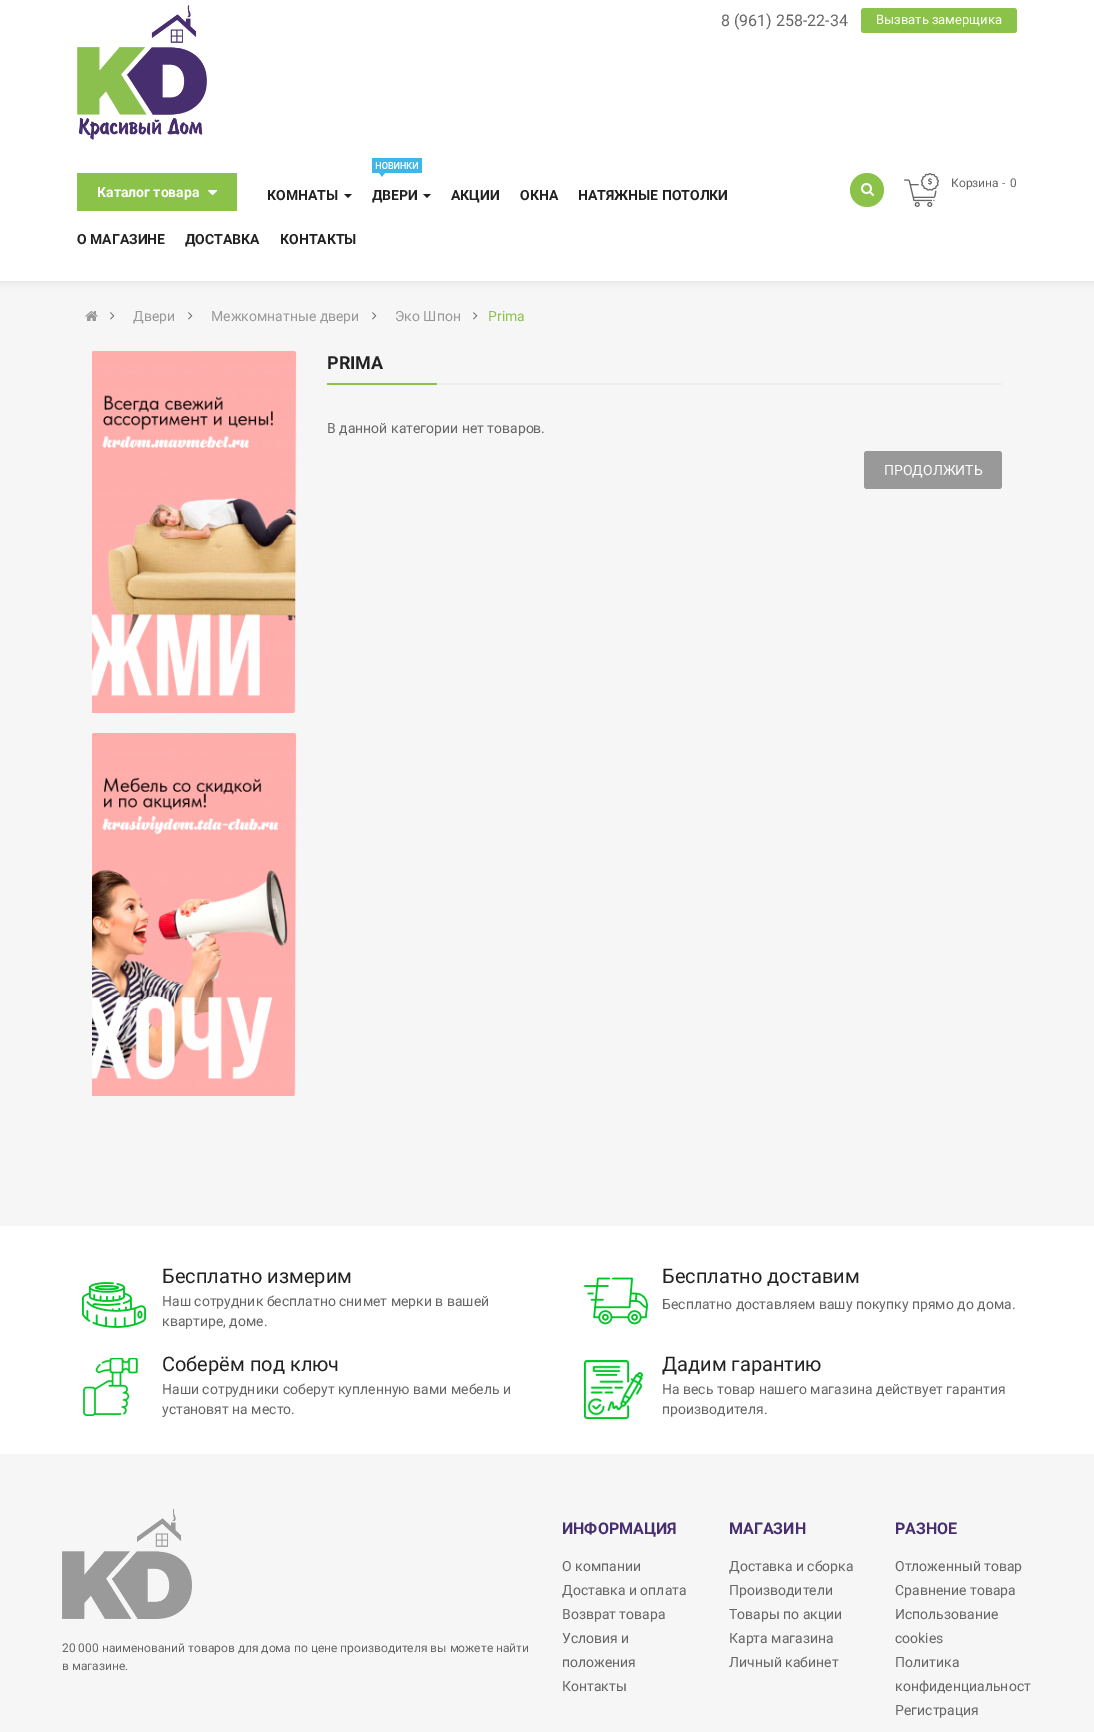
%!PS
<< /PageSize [1094 1732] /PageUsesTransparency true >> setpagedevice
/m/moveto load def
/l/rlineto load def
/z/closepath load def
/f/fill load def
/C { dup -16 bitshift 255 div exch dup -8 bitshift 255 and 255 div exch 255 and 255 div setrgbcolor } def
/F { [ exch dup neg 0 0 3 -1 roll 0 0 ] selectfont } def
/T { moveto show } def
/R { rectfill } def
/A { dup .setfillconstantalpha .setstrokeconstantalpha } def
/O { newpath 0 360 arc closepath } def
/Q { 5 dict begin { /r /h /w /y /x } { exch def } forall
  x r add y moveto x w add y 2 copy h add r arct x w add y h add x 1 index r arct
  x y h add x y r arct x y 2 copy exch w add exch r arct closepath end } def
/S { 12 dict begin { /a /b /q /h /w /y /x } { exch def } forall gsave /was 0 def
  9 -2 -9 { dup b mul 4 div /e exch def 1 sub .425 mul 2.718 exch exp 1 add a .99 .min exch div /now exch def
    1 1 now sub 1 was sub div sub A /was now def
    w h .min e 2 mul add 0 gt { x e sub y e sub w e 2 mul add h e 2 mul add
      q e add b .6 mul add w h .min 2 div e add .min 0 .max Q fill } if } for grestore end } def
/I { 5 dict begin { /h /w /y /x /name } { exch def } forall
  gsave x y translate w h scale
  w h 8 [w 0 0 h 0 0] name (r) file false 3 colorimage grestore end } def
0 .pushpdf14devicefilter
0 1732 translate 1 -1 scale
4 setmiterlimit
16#F6F6F6 C
0 0 1094 1732 R
16#000000 C
0 0 1094 281 0 5 .1 S
16#FFFFFF C
0 0 1094 281 R
/Roboto-Regular 16 F
16#666666 C
(8 \(961\) 258-22-34) 721 26 T
16#8BC34A C
861 8 156 25 3 Q f
/Roboto-Regular 13 F
16#FFFFFF C
(Вызвать замерщика) 876 24 T
(1.rgb) 77 5 130 135 I
16#8BC34A C
867 190 17 O f
(2.rgb) 861 183 13 13 I
(3.rgb) 904 173 35 34 I
/Roboto-Regular 12 F
16#666666 C
(Корзина -) 951 187 T
(0) 1010 187 T
16#8BC34A C
77 173 160 38 R
/Roboto-Bold 14 F
16#FFFFFF C
(Каталог товара) 97 197 T
(4.rgb) 208 190 10 6 I
16#222222 C
(КОМНАТЫ) 267 200 T
344 194 m 8 0 l -4 4 l z f
(5.rgb) 372 158 50 19 I
(ДВЕРИ) 372 200 T
423 194 m 8 0 l -4 4 l z f
(АКЦИИ) 451 200 T
(ОКНА) 520 200 T
(НАТЯЖНЫЕ ПОТОЛКИ) 578 200 T
(О МАГАЗИНЕ) 77 244 T
(ДОСТАВКА) 185 244 T
(КОНТАКТЫ) 280 244 T
(6.rgb) 85 311 13 10 I
(7.rgb) 110 312 5 8 I
/Roboto-Regular 14 F
16#999999 C
(Двери) 133 321 T
(7.rgb) 188 312 5 8 I
(Межкомнатные двери) 211 321 T
(7.rgb) 372 312 5 8 I
(Эко Шпон) 395 321 T
(7.rgb) 473 312 5 8 I
16#8BC34A C
(Prima) 488 321 T
(8.rgb) 92 351 205 362 I
(9.rgb) 92 733 205 363 I
16#EEEEEE C
437 383 565 2 R
/Roboto-Bold 18 F
16#222222 C
(PRIMA) 327 369 T
16#8BC34A C
327 383 110 2 R
/Roboto-Regular 14 F
16#666666 C
(В данной категории нет товаров.) 327 433 T
16#999999 C
864 451 138 38 3 Q f
16#FFFFFF C
(ПРОДОЛЖИТЬ) 884 475 T
0 1226 1094 228 R
/Roboto-Regular 20 F
16#222222 C
(Бесплатно измерим) 162 1283 T
(10.rgb) 82 1282 64 46 I
/Roboto-Regular 14 F
16#666666 C
(Наш сотрудник бесплатно снимет мерки в вашей) 162 1306 T
(квартире, доме.) 162 1326 T
(11.rgb) 584 1277 64 48 I
/Roboto-Regular 20 F
16#222222 C
(Бесплатно доставим) 662 1283 T
/Roboto-Regular 14 F
16#666666 C
(Бесплатно доставляем вашу покупку прямо до дома.) 662 1309 T
(12.rgb) 83 1358 55 58 I
/Roboto-Regular 20 F
16#222222 C
(Соберём под ключ) 162 1371 T
/Roboto-Regular 14 F
16#666666 C
(Наши сотрудники соберут купленную вами мебель и) 162 1394 T
(установят на место.) 162 1414 T
(13.rgb) 584 1360 59 59 I
/Roboto-Regular 20 F
16#222222 C
(Дадим гарантию) 662 1371 T
/Roboto-Regular 14 F
16#666666 C
(На весь товар нашего магазина действует гарантия) 662 1394 T
(производителя.) 662 1414 T
(14.rgb) 62 1509 130 110 I
/Roboto-Regular 12 F
(20 000 наименований товаров для дома по цене производителя вы можете найти) 62 1652 T
(в магазине.) 62 1670 T
/Roboto-Bold 16 F
16#472E6F C
(ИНФОРМАЦИЯ) 562 1534 T
/Roboto-Regular 14 F
16#666666 C
(О компании) 562 1571 T
(Доставка и оплата) 562 1595 T
(Возврат товара) 562 1619 T
(Условия и) 562 1643 T
(положения) 562 1667 T
(Контакты) 562 1691 T
/Roboto-Bold 16 F
16#472E6F C
(МАГАЗИН) 729 1534 T
/Roboto-Regular 14 F
16#666666 C
(Доставка и сборка) 729 1571 T
(Производители) 729 1595 T
(Товары по акции) 729 1619 T
(Карта магазина) 729 1643 T
(Личный кабинет) 729 1667 T
/Roboto-Bold 16 F
16#472E6F C
(РАЗНОЕ) 895 1534 T
/Roboto-Regular 14 F
16#666666 C
(Отложенный товар) 895 1571 T
(Сравнение товара) 895 1595 T
(Использование) 895 1619 T
(cookies) 895 1643 T
(Политика) 895 1667 T
(конфиденциальност) 895 1691 T
(Регистрация) 895 1715 T
.poppdf14devicefilter showpage
